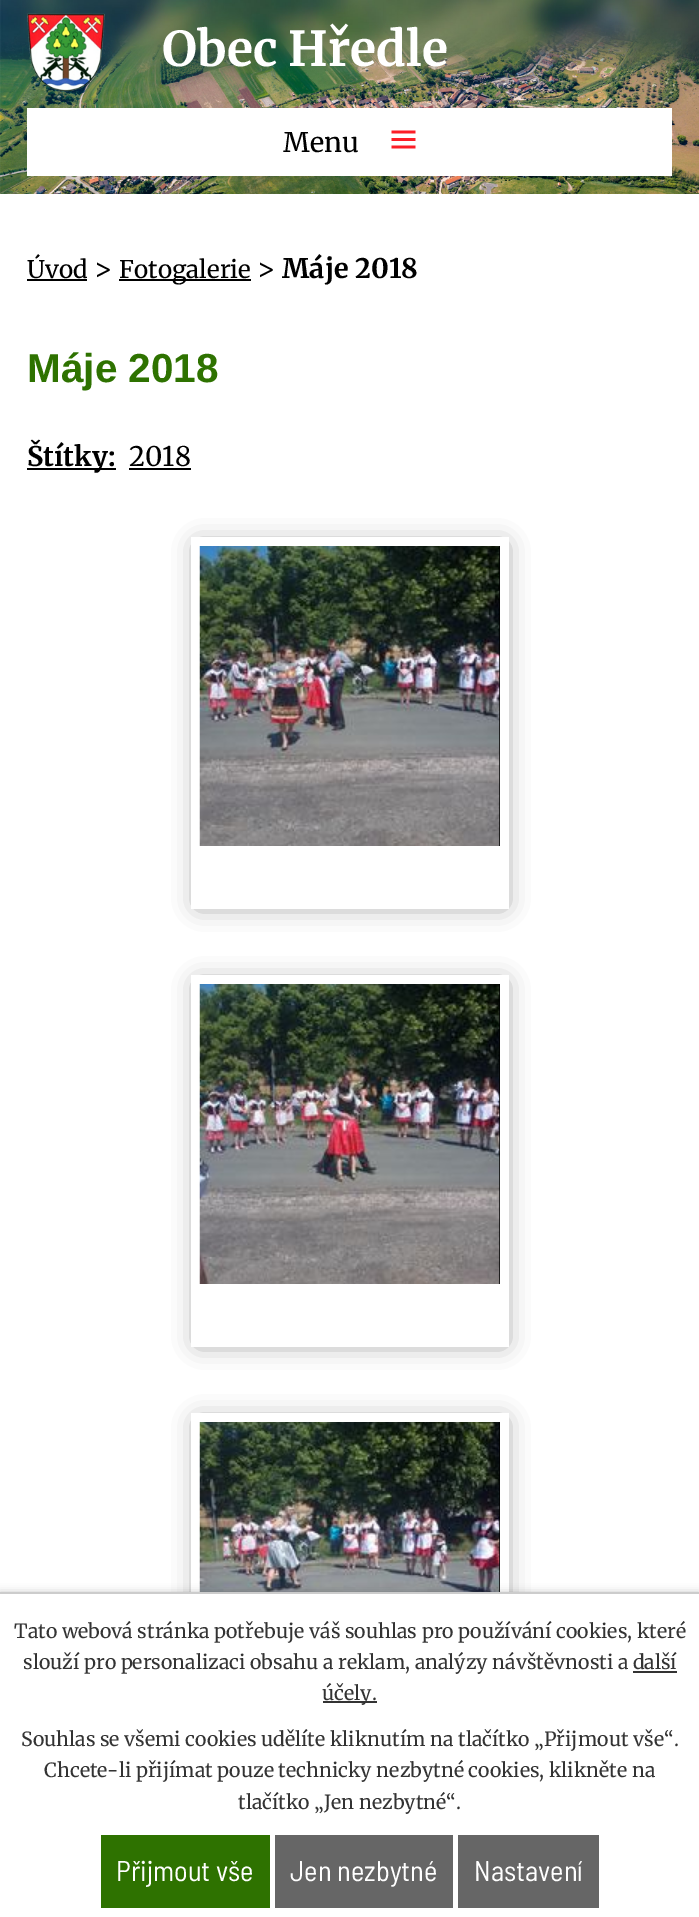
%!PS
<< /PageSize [699 1917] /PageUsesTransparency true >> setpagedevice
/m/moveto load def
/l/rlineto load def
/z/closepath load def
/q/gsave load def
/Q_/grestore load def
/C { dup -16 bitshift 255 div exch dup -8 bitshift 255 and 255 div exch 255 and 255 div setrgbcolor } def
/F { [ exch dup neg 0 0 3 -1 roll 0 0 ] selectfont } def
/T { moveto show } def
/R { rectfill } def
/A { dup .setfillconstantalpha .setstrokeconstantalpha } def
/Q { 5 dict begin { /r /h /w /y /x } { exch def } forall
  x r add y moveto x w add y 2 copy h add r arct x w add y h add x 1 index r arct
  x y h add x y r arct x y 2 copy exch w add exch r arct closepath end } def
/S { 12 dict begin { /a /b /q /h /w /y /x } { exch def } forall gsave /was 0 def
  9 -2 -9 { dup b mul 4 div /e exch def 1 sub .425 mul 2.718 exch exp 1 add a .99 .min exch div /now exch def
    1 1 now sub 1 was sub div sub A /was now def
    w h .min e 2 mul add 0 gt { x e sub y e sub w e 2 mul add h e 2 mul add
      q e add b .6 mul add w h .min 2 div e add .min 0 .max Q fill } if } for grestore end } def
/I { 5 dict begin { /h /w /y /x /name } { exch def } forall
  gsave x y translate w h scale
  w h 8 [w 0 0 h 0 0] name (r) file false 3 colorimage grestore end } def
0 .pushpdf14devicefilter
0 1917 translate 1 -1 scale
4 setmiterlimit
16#FFFFFF C
0 0 699 1917 R
(1.rgb) 0 0 699 194 I
(2.rgb) 27 13 78 79 I
/Merriweather-Bold 48 F
(Obec Hředle) 162 66 T
27 108 645 68 R
/Merriweather-Regular 27 F
16#000000 C
(Menu) 283 152 T
(3.rgb) 391 130 25 19 I
/Merriweather-Regular 24.25 F
(Úvod) 27 278 T
27 279 60 2 R
/Merriweather-Regular 27 F
(>) 94 278 T
119 279 132 2 R
/Merriweather-Regular 24.25 F
(Fotogalerie) 119 278 T
/Merriweather-Regular 27 F
(>) 257 278 T
/Merriweather-Bold 27 F
(Máje 2018) 282 278 T
/LiberationSans-Bold 40.5 F
16#2E7200 C
(Máje 2018) 27 382 T
16#000000 C
27 468 89 2 R
/Merriweather-Bold 27 F
(Štítky:) 27 466 T
/Merriweather-Regular 27 F
(2018) 129 466 T
129 468 62 2 R
q
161 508 m 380 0 l 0 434 l -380 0 l z 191 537 m 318 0 l 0 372 l -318 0 l z eoclip newpath
16#888888 C
198 545 306 360 0 12 1 S
Q_
499 546 1 300 R
(4.rgb) 199 546 301 300 I
q
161 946 m 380 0 l 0 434 l -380 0 l z 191 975 m 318 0 l 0 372 l -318 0 l z eoclip newpath
16#888888 C
198 983 306 360 0 12 1 S
Q_
499 984 1 300 R
(5.rgb) 199 984 301 300 I
q
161 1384 m 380 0 l 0 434 l -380 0 l z 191 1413 m 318 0 l 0 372 l -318 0 l z eoclip newpath
16#888888 C
198 1421 306 360 0 12 1 S
Q_
499 1422 1 170 R
(6.rgb) 199 1422 301 170 I
0 1592 699 325 0 4 .2 S
16#FFFFFF C
0 1594 699 323 R
16#CCCCCC C
0 1592 699 2 R
/Merriweather-Regular 19.5 F
16#333333 C
(Tato webová stránka potřebuje váš souhlas pro používání cookies, které) 14 1638 T
(slouží pro personalizaci obsahu a reklam, analýzy návštěvnosti a další) 23 1669 T
323 1701 54 2 R
(účely.) 322 1700 T
633 1671 44 2 R
(Souhlas se všemi cookies udělíte kliknutím na tlačítko „Přijmout vše“.) 21 1746 T
(Chcete-li přijímat pouze technicky nezbytné cookies, klikněte na) 44 1777 T
(tlačítko „Jen nezbytné“.) 238 1809 T
16#2E7200 C
101 1835 169 73 R
/BarlowSemiCondensed-Regular 28.5 F
16#FFFFFF C
(Přijmout vše) 116 1881 T
16#666666 C
275 1835 178 73 R
16#FFFFFF C
(Jen nezbytné) 290 1881 T
16#666666 C
458 1835 141 73 R
16#FFFFFF C
(Nastavení) 474 1881 T
.poppdf14devicefilter showpage
